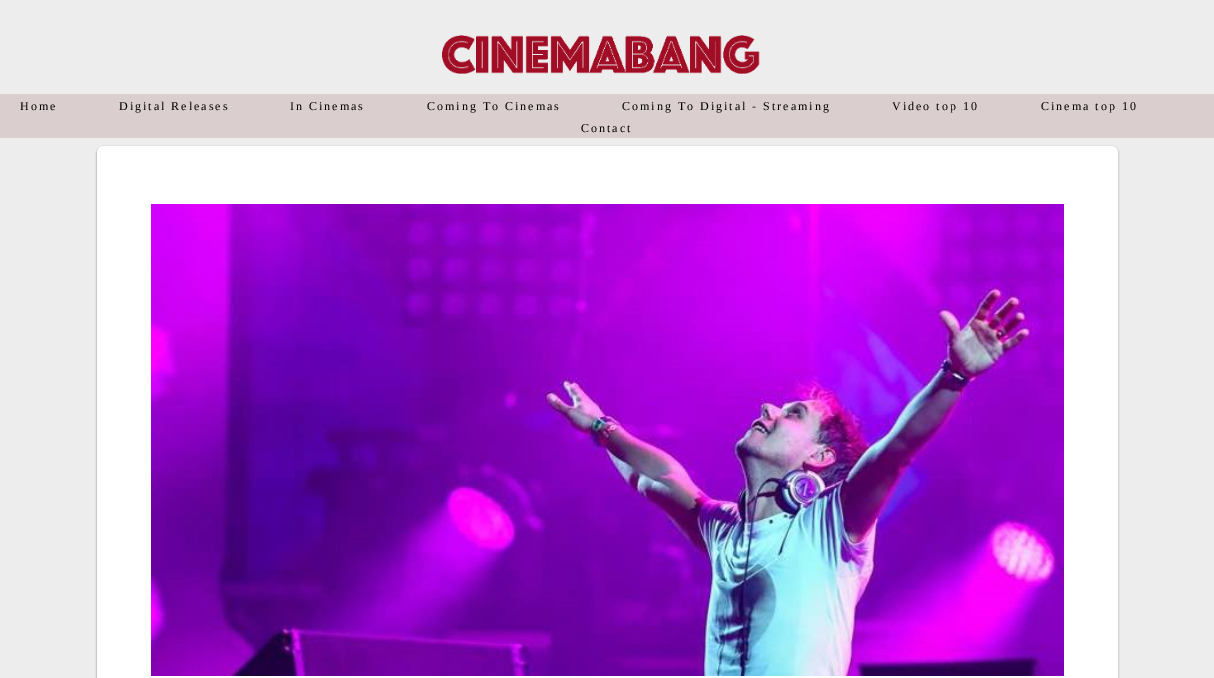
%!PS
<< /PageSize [1214 678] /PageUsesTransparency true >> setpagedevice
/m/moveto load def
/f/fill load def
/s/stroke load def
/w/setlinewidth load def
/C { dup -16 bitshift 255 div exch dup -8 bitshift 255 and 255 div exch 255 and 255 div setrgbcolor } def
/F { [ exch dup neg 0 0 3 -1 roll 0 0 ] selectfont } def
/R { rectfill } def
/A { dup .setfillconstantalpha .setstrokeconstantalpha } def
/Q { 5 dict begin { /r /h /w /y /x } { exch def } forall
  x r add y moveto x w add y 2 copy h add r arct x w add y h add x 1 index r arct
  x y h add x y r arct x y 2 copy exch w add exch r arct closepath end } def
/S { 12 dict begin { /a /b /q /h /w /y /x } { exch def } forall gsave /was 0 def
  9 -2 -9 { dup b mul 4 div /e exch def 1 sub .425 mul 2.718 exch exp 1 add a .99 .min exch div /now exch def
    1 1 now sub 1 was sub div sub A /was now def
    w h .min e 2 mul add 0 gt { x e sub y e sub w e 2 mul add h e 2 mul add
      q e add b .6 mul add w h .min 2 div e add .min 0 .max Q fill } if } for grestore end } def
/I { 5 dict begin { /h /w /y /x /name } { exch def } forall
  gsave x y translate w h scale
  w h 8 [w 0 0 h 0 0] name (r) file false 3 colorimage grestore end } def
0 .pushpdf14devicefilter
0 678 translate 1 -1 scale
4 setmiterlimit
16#EDEDED C
0 0 1214 678 R
(1.rgb) 442 35 318 39 I
16#DBCECE C
0 94 1214 44 R
/LiberationSerif-Regular 12 F
16#000000 C
20 110 m 2 0 (Home) ashow
119 110 m 2 0 (Digital Releases) ashow
290 110 m 2 0 (In Cinemas) ashow
427 110 m 2 0 (Coming To Cinemas) ashow
622 110 m 2 0 (Coming To Digital - Streaming) ashow
892 110 m 2 0 (Video top 10) ashow
1041 110 m 2 0 (Cinema top 10) ashow
581 132 m 2 0 (Contact) ashow
97 147 1021 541 7 1 .5 S
16#FFFFFF C
3 w
98.5 147.5 1018 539 5.5 Q s
100 149 1015 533 4 Q f
(2.rgb) 151 204 913 472 I
.poppdf14devicefilter showpage
